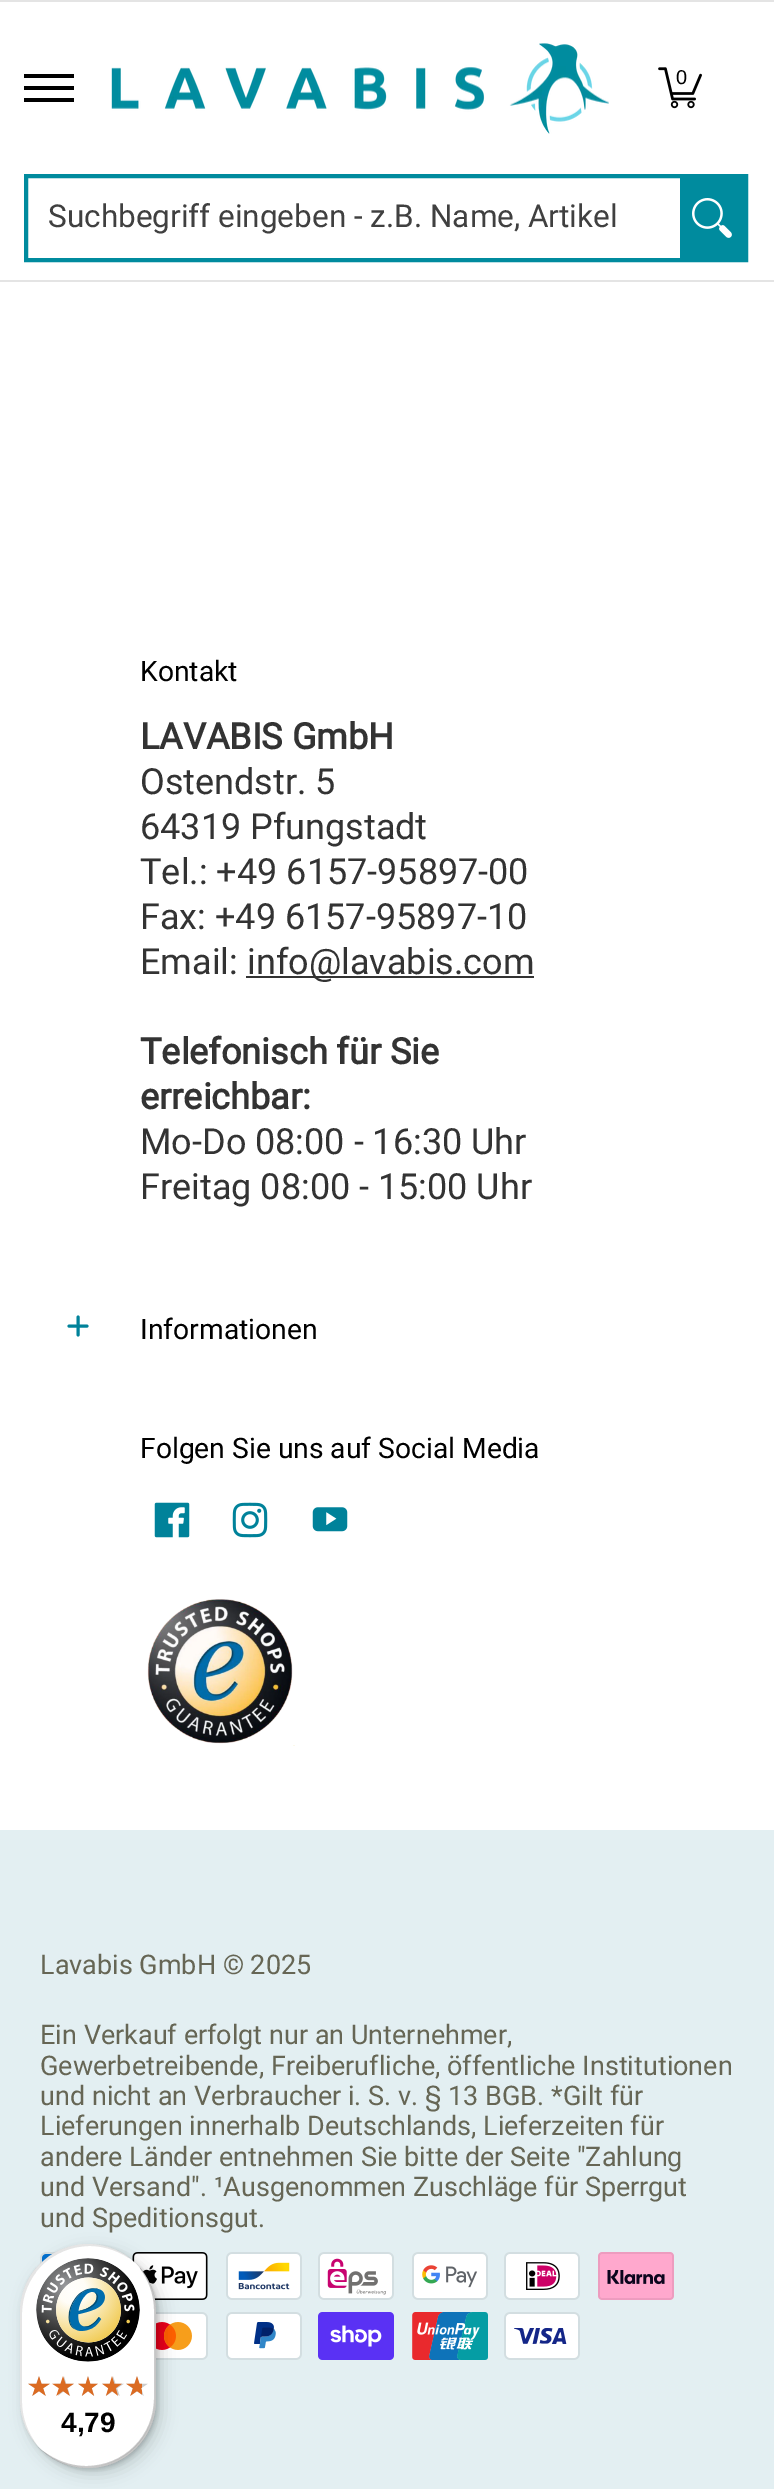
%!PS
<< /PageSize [774 2489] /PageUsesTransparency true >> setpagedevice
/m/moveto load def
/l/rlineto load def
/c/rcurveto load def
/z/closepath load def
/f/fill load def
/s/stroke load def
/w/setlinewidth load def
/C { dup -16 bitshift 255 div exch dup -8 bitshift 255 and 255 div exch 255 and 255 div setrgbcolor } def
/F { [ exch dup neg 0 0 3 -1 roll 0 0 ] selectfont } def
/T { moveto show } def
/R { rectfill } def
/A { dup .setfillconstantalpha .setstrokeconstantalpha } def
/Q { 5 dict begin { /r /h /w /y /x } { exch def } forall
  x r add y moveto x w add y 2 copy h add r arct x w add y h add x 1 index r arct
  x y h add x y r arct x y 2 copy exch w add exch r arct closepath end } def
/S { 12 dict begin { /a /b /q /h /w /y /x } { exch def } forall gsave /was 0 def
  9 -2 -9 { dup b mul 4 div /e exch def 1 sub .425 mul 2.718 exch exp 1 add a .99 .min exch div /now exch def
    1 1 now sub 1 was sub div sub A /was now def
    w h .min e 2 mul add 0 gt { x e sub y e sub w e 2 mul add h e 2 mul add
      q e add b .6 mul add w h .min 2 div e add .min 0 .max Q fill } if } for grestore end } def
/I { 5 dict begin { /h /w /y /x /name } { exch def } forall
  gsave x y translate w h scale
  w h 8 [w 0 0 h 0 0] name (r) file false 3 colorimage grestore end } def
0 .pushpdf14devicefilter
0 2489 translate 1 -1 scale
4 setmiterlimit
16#FFFFFF C
0 0 774 2489 R
16#E4E4E4 C
0 0 774 2 R
0 280 774 2 R
16#000000 C
24 74 50 4 R
24 98 50 4 R
24 86 50 4 R
(1.rgb) 111 43 498 91 I
(2.rgb) 658 67 44 42 I
/LiberationSans-Regular 20 F
(0) 676 84 T
16#008B9E C
4 w
26 176 720 84 rectstroke
/Roboto-Regular 31.5 F
16#404040 C
(Suchbegriff eingeben - z.B. Name, Artikel) 48 227 T
16#008B9E C
680 178 64 80 R
(3.rgb) 692 198 40 40 I
/Roboto-Regular 28.25 F
16#000000 C
(Kontakt) 140 681 T
/Roboto-Bold 36 F
16#333333 C
(LAVABIS GmbH) 140 749 T
/Roboto-Regular 36 F
(Ostendstr. 5) 140 794 T
(64319 Pfungstadt) 140 839 T
(Tel.: +49 6157-95897-00) 140 884 T
(Fax: +49 6157-95897-10) 140 929 T
(Email:) 140 974 T
246 976 288 2 R
(info@lavabis.com) 247 974 T
/Roboto-Bold 36 F
(Telefonisch für Sie) 140 1064 T
(erreichbar:) 140 1109 T
/Roboto-Regular 36 F
(Mo-Do 08:00 - 16:30 Uhr) 140 1154 T
(Freitag 08:00 - 15:00 Uhr) 140 1199 T
16#00829A C
3 w
1 setlinecap
1 setlinejoin
78 1317 m 0 18 l 87 1326 m -18 0 l s
/Roboto-Regular 28.25 F
16#000000 C
(Informationen) 140 1339 T
(Folgen Sie uns auf Social Media) 140 1458 T
(4.rgb) 154 1502 36 36 I
(5.rgb) 232 1502 36 36 I
(6.rgb) 312 1507 36 25 I
(7.rgb) 147 1599 148 147 I
16#E3EFF2 C
0 1830 774 659 R
/Roboto-Regular 27 F
16#666655 C
(Lavabis GmbH © 2025) 40 1974 T
(Ein Verkauf erfolgt nur an Unternehmer,) 40 2044 T
(Gewerbetreibende, Freiberufliche, öffentliche Institutionen) 40 2075 T
(und nicht an Verbraucher i. S. v. § 13 BGB. *Gilt für) 40 2105 T
(Lieferungen innerhalb Deutschlands, Lieferzeiten für) 40 2135 T
(andere Länder entnehmen Sie bitte der Seite "Zahlung) 40 2166 T
(und Versand". ¹Ausgenommen Zuschläge für Sperrgut) 40 2196 T
(und Speditionsgut.) 40 2227 T
(8.rgb) 40 2252 16 12 I
(9.rgb) 132 2252 76 48 I
(10.rgb) 226 2252 76 48 I
(11.rgb) 318 2252 76 48 I
(12.rgb) 412 2252 76 48 I
(13.rgb) 504 2252 76 48 I
(14.rgb) 598 2252 76 48 I
(15.rgb) 156 2312 52 48 I
(16.rgb) 226 2312 76 48 I
(17.rgb) 318 2312 76 48 I
(18.rgb) 412 2312 76 48 I
(19.rgb) 504 2312 76 48 I
16#000000 C
26 2250 136 224 68 8 .15 S
22 2246 136 224 68 2 .15 S
16#FFFFFF C
20 2244 136 224 68 Q f
0.1 A
16#000000 C
90 2246 m 16 0 31 6 43 15 c -12 -11 -28 -17 -45 -17 c -38 0 -68 30 -68 68 c 0 88 l 0 17 6 33 17 45 c -9 -12 -15 -27 -15 -43 c 0 -88 l 0 -38 30 -68 68 -68 c z f
0.2 A
43 2451 m 12 11 28 17 45 17 c 38 0 68 -30 68 -68 c 0 -88 l 0 -17 -6 -33 -17 -45 c 9 12 15 27 15 43 c 0 88 l 0 38 -30 68 -68 68 c -16 0 -31 -6 -43 -15 c z f
16#323232 C
38 2447 m 13 13 30 21 50 21 c 38 0 68 -30 68 -68 c 0 -88 l 0 -20 -8 -37 -21 -50 c 12 13 20 30 20 49 c 0 88 l 0 37 -31 68 -68 68 c -19 0 -36 -8 -49 -20 c z f
0.3 A
16#FFFFFF C
47 2454 m 12 9 26 14 41 14 c 38 0 68 -30 68 -68 c 0 -88 l 0 -15 -5 -29 -14 -41 c 8 11 13 25 13 40 c 0 88 l 0 38 -30 68 -68 68 c -15 0 -29 -5 -40 -13 c z f
1 A
(20.rgb) 36 2258 104 104 I
(21.rgb) 28 2376 22 20 I
(22.rgb) 54 2376 20 20 I
(23.rgb) 78 2376 20 20 I
(24.rgb) 102 2376 22 20 I
(24.rgb) 126 2376 22 20 I
(25.rgb) 28 2376 22 20 I
(26.rgb) 52 2376 22 20 I
(27.rgb) 78 2376 20 20 I
(28.rgb) 102 2376 20 20 I
(29.rgb) 126 2376 16 20 I
/LiberationSans-Bold 28 F
16#000000 C
(4,79) 61 2432 T
.poppdf14devicefilter showpage
